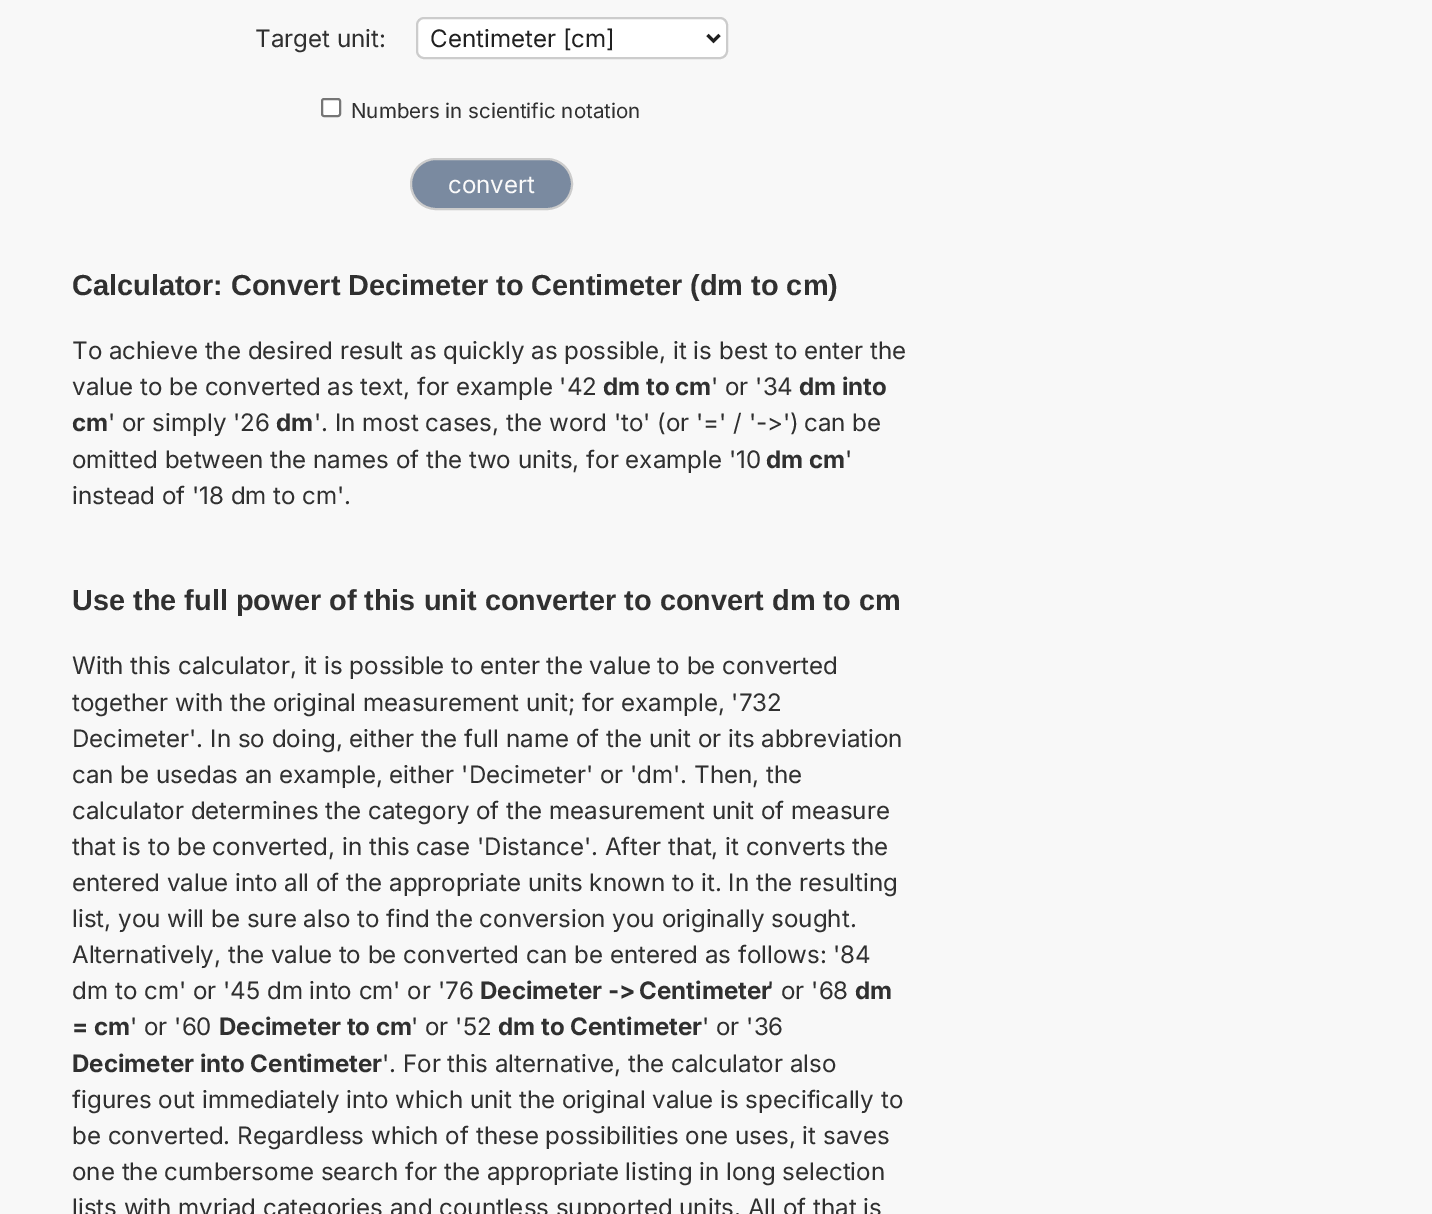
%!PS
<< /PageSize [1432 1214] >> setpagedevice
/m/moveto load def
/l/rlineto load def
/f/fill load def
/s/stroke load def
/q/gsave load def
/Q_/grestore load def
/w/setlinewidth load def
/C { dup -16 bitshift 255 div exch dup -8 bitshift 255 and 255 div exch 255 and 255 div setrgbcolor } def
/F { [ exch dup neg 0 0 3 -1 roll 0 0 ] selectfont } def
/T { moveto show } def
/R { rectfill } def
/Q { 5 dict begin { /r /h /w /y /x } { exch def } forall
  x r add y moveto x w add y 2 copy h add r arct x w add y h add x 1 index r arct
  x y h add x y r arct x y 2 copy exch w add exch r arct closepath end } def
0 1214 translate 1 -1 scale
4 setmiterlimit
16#F8F8F8 C
0 0 1432 1214 R
/Inter-Regular 24.1 F
16#303030 C
(Target unit:) 255 47 T
16#FFFFFF C
417 18 310 40 7 Q q f Q_
16#CCCCCC C
2 w
s
16#202020 C
3 w
707.5 35 m 6 6 l 6 -6 l s
(Centimeter [cm]) 430 47 T
16#FFFFFF C
322 99 18 17 2 Q q f Q_
16#767676 C
2 w
s
/Inter-Regular 20.5 F
16#303030 C
(Numbers in scientific notation) 351 118 T
16#7A8AA0 C
411 159 161 50 25 Q q f Q_
16#CCCCCC C
s
/Inter-Regular 24.1 F
16#FAFAFA C
(convert) 448 193 T
/LiberationSans-Bold 28.9 F
16#303030 C
(Calculator: Convert Decimeter to Centimeter \(dm to cm\)) 72 295 T
/Inter-Regular 24.1 F
(To achieve the desired result as quickly as possible, it is best to enter the) 72 359 T
(value to be converted as text, for example '42) 72 395 T
/Inter-Bold 24.1 F
(dm to cm) 603 395 T
/Inter-Regular 24.1 F
(' or '34) 711 395 T
/Inter-Bold 24.1 F
(dm into) 799 395 T
(cm) 72 431 T
/Inter-Regular 24.1 F
(' or simply '26) 108 431 T
/Inter-Bold 24.1 F
(dm) 276 431 T
/Inter-Regular 24.1 F
('. In most cases, the word 'to' \(or '=' / '->'\)) 314 431 T
(can be) 804 431 T
(omitted between the names of the two units, for example '10) 72 468 T
/Inter-Bold 24.1 F
(dm cm) 766 468 T
/Inter-Regular 24.1 F
(') 845 468 T
(instead of '18 dm to cm'.) 72 504 T
/LiberationSans-Bold 28.9 F
(Use the full power of this unit converter to convert dm to cm) 72 610 T
/Inter-Regular 24.1 F
(With this calculator, it is possible to enter the value to be converted) 72 674 T
(together with the original measurement unit; for example, '732) 72 711 T
(Decimeter'. In so doing, either the full name of the unit or its abbreviation) 72 747 T
(can be usedas an example, either 'Decimeter' or 'dm'. Then, the) 72 783 T
(calculator determines the category of the measurement unit of measure) 72 819 T
(that is to be converted, in this case 'Distance'. After that, it converts the) 72 855 T
(entered value into all of the appropriate units known to it. In the resulting) 72 891 T
(list, you will be sure also to find the conversion you originally sought.) 72 927 T
(Alternatively, the value to be converted can be entered as follows: '84) 72 963 T
(dm to cm' or '45 dm into cm' or '76) 72 999 T
/Inter-Bold 24.1 F
(Decimeter ->) 480 999 T
(Centimeter) 639 999 T
/Inter-Regular 24.1 F
(' or '68) 767 999 T
/Inter-Bold 24.1 F
(dm) 855 999 T
(= cm) 72 1035 T
/Inter-Regular 24.1 F
(' or '60) 130 1035 T
/Inter-Bold 24.1 F
(Decimeter to cm) 219 1035 T
/Inter-Regular 24.1 F
(' or '52) 411 1035 T
/Inter-Bold 24.1 F
(dm to Centimeter) 498 1035 T
/Inter-Regular 24.1 F
(' or '36) 702 1035 T
/Inter-Bold 24.1 F
(Decimeter into Centimeter) 72 1072 T
/Inter-Regular 24.1 F
('. For this alternative, the calculator also) 382 1072 T
(figures out immediately into which unit the original value is specifically to) 72 1108 T
(be converted. Regardless which of these possibilities one uses, it saves) 72 1144 T
(one the cumbersome search for the appropriate listing in long selection) 72 1180 T
(lists with myriad categories and countless supported units. All of that is) 72 1216 T
showpage
